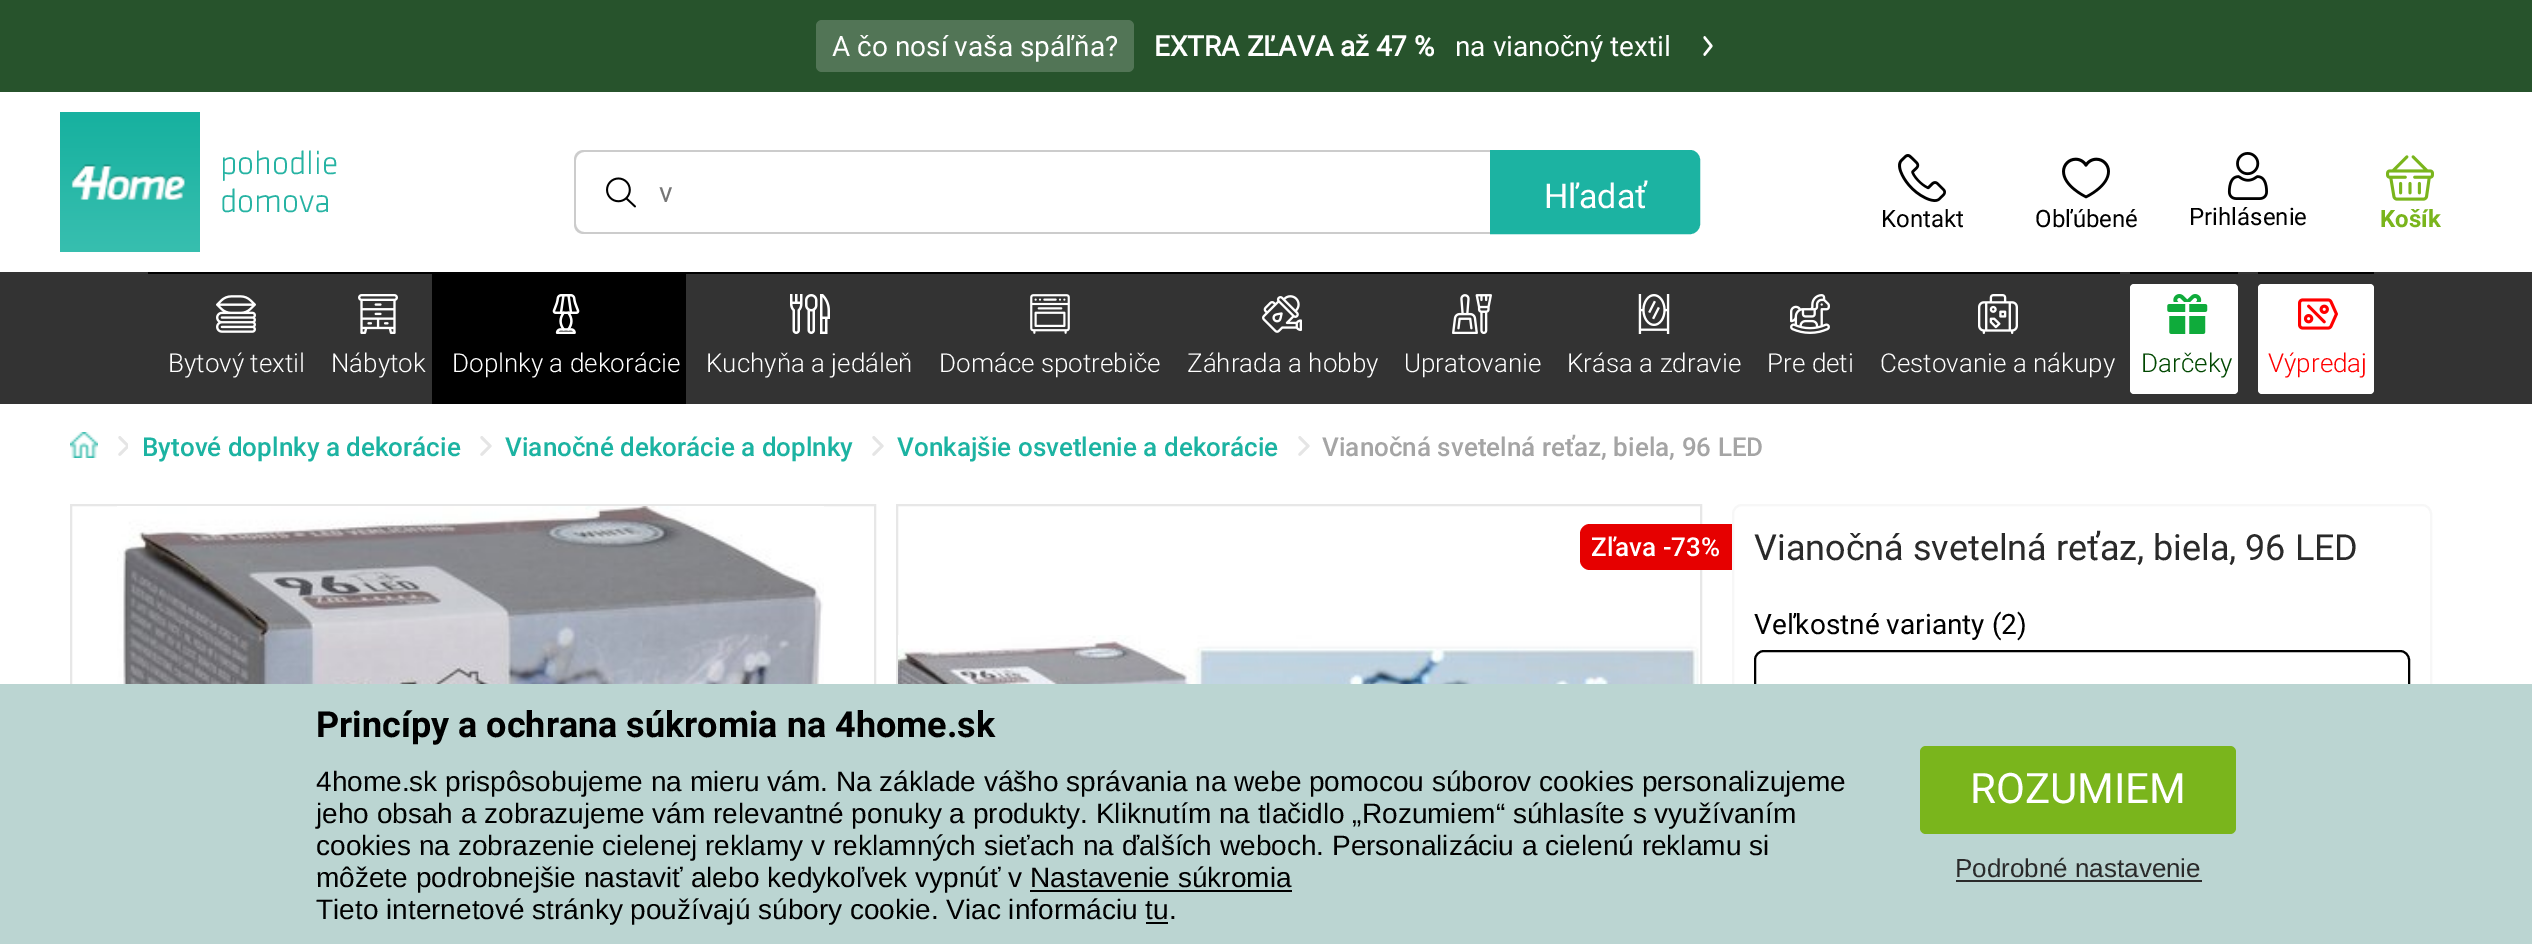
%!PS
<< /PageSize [2532 944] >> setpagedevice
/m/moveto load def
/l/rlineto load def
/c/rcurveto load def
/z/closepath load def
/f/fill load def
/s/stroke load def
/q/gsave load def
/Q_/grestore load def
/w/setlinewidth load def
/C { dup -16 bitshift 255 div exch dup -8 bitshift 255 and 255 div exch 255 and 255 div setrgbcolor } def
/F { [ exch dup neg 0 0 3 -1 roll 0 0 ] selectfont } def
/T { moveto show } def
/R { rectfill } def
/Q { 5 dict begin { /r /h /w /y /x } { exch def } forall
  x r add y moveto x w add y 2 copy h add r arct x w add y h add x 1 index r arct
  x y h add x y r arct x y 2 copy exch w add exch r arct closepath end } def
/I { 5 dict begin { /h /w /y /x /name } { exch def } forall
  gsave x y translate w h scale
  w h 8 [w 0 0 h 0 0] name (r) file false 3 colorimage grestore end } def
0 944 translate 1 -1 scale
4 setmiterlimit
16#FFFFFF C
0 0 2532 944 R
16#27532C C
0 0 2532 92 R
16#527556 C
816 20 318 52 6 Q f
/Roboto-Regular 28 F
16#FFFFFF C
(A čo nosí vaša spáľňa?) 832 56 T
/Roboto-Bold 28 F
(EXTRA ZĽAVA až 47 %) 1154 56 T
/Roboto-Regular 28 F
(na vianočný textil) 1455 56 T
(1.rgb) 1703 36 10 20 I
(2.rgb) 60 112 140 140 I
/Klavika-Light 34 F
16#26B3A3 C
(pohodlie) 220 174 T
(domova) 220 212 T
(3.rgb) 606 177 30 31 I
16#CCCCCC C
584 150 m 1106 0 l 0 84 l -1106 0 l -6 0 -10 -4 -10 -10 c 0 -64 l 0 -6 4 -10 10 -10 c z 584 152 m 1106 0 l 0 80 l -1106 0 l -4 0 -8 -4 -8 -8 c 0 -64 l 0 -4 4 -8 8 -8 c z eofill
/Roboto-Regular 28 F
16#757575 C
(v) 659 202 T
16#1CB3A2 C
1491 151 m 199 0 l 5 0 9 4 9 9 c 0 64 l 0 5 -4 9 -9 9 c -199 0 l z q f Q_
2 w
s
/Roboto-Regular 34 F
16#FFFFFF C
(Hľadať) 1544 208 T
(4.rgb) 1898 154 48 48 I
/Roboto-Regular 24 F
16#000000 C
(Kontakt) 1881 227 T
(5.rgb) 2062 157 48 42 I
(Obľúbené) 2035 227 T
(6.rgb) 2227 152 41 48 I
(Prihlásenie) 2189 225 T
(7.rgb) 2386 155 48 46 I
/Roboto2-Bold 24 F
16#7AB51C C
(Košík) 2380 227 T
16#333333 C
0 272 2532 132 R
16#000000 C
148 272 1972 2 R
(8.rgb) 216 295 40 38 I
/Roboto-Light 26 F
16#FFFFFF C
(Bytový textil) 168 372 T
(9.rgb) 358 294 40 40 I
(Nábytok) 331 372 T
16#000000 C
432 274 254 130 R
(10.rgb) 552 294 28 40 I
16#FFFFFF C
(Doplnky a dekorácie) 452 372 T
(11.rgb) 790 294 40 40 I
(Kuchyňa a jedáleň) 706 372 T
(12.rgb) 1030 294 40 40 I
(Domáce spotrebiče) 939 372 T
(13.rgb) 1262 295 40 38 I
(Záhrada a hobby) 1187 372 T
(14.rgb) 1452 294 40 40 I
(Upratovanie) 1404 372 T
(15.rgb) 1638 294 32 40 I
(Krása a zdravie) 1567 372 T
(16.rgb) 1790 294 40 40 I
(Pre deti) 1767 372 T
(17.rgb) 1978 294 40 40 I
(Cestovanie a nákupy) 1880 372 T
16#000000 C
2130 272 108 2 R
16#FFFFFF C
2130 284 108 110 4 Q f
(18.rgb) 2167 294 41 40 I
16#004700 C
(Darčeky) 2141 372 T
16#000000 C
2258 272 116 2 R
16#FFFFFF C
2258 284 116 110 4 Q f
(19.rgb) 2298 298 40 32 I
16#FF0000 C
(Výpredaj) 2268 372 T
(20.rgb) 70 432 28 26 I
(21.rgb) 118 436 10 20 I
/Roboto-Medium 26 F
16#1CB3A2 C
(Bytové doplnky a dekorácie) 142 456 T
(22.rgb) 480 436 12 20 I
(Vianočné dekorácie a doplnky) 505 456 T
(22.rgb) 872 436 12 20 I
(Vonkajšie osvetlenie a dekorácie) 897 456 T
(22.rgb) 1298 436 12 20 I
16#A5A5A5 C
(Vianočná svetelná reťaz, biela, 96 LED) 1322 456 T
16#E7E7E7 C
71 505 804 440 rectstroke
(23.rgb) 117 506 707 178 I
897 505 804 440 rectstroke
(24.rgb) 898 635 801 49 I
16#E60000 C
1590 524 m 142 0 l 0 46 l -142 0 l -5.5 0 -10 -4.5 -10 -10 c 0 -26 l 0 -5.5 4.5 -10 10 -10 c z f
16#FFFFFF C
(Zľava -73%) 1591 556 T
16#F7F7F7 C
1733 505 698 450 9 Q s
/Roboto-Regular 36 F
16#2A2A2A C
(Vianočná svetelná reťaz, biela, 96 LED) 1754 560 T
/Roboto-Regular 28 F
16#000000 C
(Veľkostné varianty \(2\)) 1754 634 T
1755 651 654 94 9 Q s
16#BBD5D2 C
0 684 2532 260 R
/Roboto2-Bold 36 F
16#000000 C
(Princípy a ochrana súkromia na 4home.sk) 316 737 T
/LiberationSans-Regular 28 F
(4home.sk prispôsobujeme na mieru vám. Na základe vášho správania na webe pomocou súborov cookies personalizujeme) 316 791 T
(jeho obsah a zobrazujeme vám relevantné ponuky a produkty. Kliknutím na tlačidlo „Rozumiem“ súhlasíte s využívaním) 316 823 T
(cookies na zobrazenie cielenej reklamy v reklamných sieťach na ďalších weboch. Personalizáciu a cielenú reklamu si) 316 855 T
(môžete podrobnejšie nastaviť alebo kedykoľvek vypnúť v Nastavenie súkromia) 316 887 T
1030 890 262 2 R
(Tieto internetové stránky používajú súbory cookie. Viac informáciu tu.) 316 919 T
1146 922 22 2 R
16#7AB51C C
1920 746 316 88 6 Q f
/Roboto-Regular 42 F
16#FFFFFF C
(ROZUMIEM) 1970 803 T
/LiberationSans-Regular 26 F
16#2A2A2A C
(Podrobné nastavenie) 1955 877 T
1956 880 246 2 R
showpage
